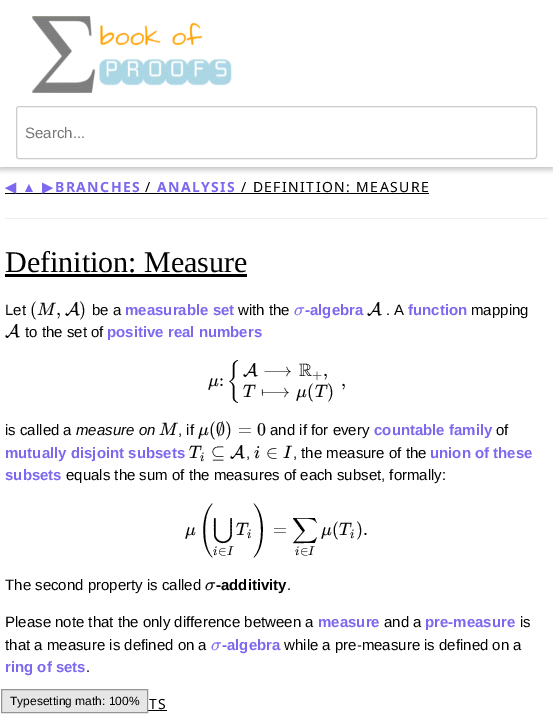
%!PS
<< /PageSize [553 715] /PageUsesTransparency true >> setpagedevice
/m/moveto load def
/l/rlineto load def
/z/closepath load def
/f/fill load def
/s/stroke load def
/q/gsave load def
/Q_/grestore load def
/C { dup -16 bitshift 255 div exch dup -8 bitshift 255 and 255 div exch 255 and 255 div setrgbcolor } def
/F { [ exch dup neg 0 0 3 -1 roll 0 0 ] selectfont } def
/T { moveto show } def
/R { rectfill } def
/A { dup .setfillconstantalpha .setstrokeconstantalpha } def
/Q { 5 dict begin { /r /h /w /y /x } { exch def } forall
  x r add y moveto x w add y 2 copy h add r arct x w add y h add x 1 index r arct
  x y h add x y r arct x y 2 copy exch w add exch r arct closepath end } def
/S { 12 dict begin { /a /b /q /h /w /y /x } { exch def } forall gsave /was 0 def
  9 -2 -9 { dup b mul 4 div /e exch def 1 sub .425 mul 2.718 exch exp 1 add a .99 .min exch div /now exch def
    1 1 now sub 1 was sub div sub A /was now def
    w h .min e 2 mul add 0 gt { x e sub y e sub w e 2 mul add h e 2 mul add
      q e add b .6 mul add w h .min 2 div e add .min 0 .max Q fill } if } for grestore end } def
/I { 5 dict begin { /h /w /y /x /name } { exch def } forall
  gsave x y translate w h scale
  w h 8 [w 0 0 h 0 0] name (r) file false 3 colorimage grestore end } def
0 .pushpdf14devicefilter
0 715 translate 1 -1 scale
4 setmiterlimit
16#FFFFFF C
0 0 553 715 R
q
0 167 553 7 rectclip
16#000000 C
0 2 553 167 0 5 .12 S
Q_
q
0 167 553 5 rectclip
16#000000 C
0 2 553 167 0 2.5 .16 S
Q_
(1.rgb) 32 16 200 77 I
16#CCCCCC C
16.5 106.5 520 52 2.5 Q s
/LiberationSans-Regular 15 F
16#757575 C
(Search...) 25 138 T
16#000000 C
5 193 424 1 R
/DejaVuSans-Bold 14 F
16#7B68EE C
5 192 m 1.4 0 (◀) ashow
/LiberationSans-Bold 14 F
22 192 m 1.4 0 (▲) ashow
/DejaVuSans-Bold 14 F
42 192 m 1.4 0 (▶) ashow
/NotoSans-Bold 14 F
55 192 m 1.4 0 (BRANCHES) ashow
/NotoSans-Regular 14 F
16#000000 C
145 192 m 1.4 0 (/) ashow
/NotoSans-Bold 14 F
16#7B68EE C
157 192 m 1.4 0 (ANALYSIS) ashow
/NotoSans-Regular 14 F
16#000000 C
241 192 m 1.4 0 (/ DEFINITION: MEASURE) ashow
16#EEEEEE C
5 218 543 1 R
/LiberationSerif-Regular 30 F
16#000000 C
(Definition: Measure) 5 272 T
5 274 242 3 R
/LiberationSans-Regular 15 F
(Let) 5 315 T
/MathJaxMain-Regular 18 F
(\() 30 315 T
/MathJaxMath-Italic 18 F
(M) 37 315 T
/MathJaxMain-Regular 18 F
(,) 56 315 T
/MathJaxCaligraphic-Regular 18 F
(A) 65 315 T
/MathJaxMain-Regular 18 F
(\)) 79 315 T
/LiberationSans-Regular 15 F
(be a) 92 315 T
/LiberationSans-Bold 15 F
16#7B68EE C
(measurable set) 125 315 T
/LiberationSans-Regular 15 F
16#000000 C
(with the) 238 315 T
/MathJaxMath-Italic 18 F
16#7B68EE C
(σ) 294 315 T
/LiberationSans-Bold 15 F
(-algebra) 305 315 T
/MathJaxCaligraphic-Regular 18 F
16#000000 C
(A) 367 315 T
/LiberationSans-Regular 15 F
(. A) 386 315 T
/LiberationSans-Bold 15 F
16#7B68EE C
(function) 408 315 T
/LiberationSans-Regular 15 F
16#000000 C
(mapping) 471 315 T
/MathJaxCaligraphic-Regular 18 F
(A) 5 337 T
/LiberationSans-Regular 15 F
(to the set of) 25 337 T
/LiberationSans-Bold 15 F
16#7B68EE C
(positive real numbers) 107 337 T
/MathJaxMath-Italic 18 F
16#000000 C
(μ) 208 386 T
/MathJaxMain-Regular 18 F
(:) 219 386 T
/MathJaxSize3-Regular 18 F
({) 227 386 T
/MathJaxCaligraphic-Regular 18 F
(A) 243 376 T
/MathJaxMain-Regular 18 F
(⟶) 263 376 T
/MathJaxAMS-Regular 18 F
(R) 299 376 T
/MathJaxMain-Regular 13 F
(+) 312 379 T
/MathJaxMain-Regular 18 F
(,) 323 376 T
/MathJaxMath-Italic 18 F
(T) 243 397 T
/MathJaxMain-Regular 18 F
(⟼) 261 397 T
/MathJaxMath-Italic 18 F
(μ) 296 397 T
/MathJaxMain-Regular 18 F
(\() 307 397 T
/MathJaxMath-Italic 18 F
(T) 315 397 T
/MathJaxMain-Regular 18 F
(\)) 327 397 T
(,) 341 386 T
/LiberationSans-Regular 15 F
(is called a) 5 435 T
/LiberationSans-Italic 15 F
(measure on) 76 435 T
/MathJaxMath-Italic 18 F
(M) 159 435 T
/LiberationSans-Regular 15 F
(, if) 178 435 T
/MathJaxMath-Italic 18 F
(μ) 198 435 T
/MathJaxMain-Regular 18 F
(\(∅\)) 209 435 T
(=) 238 435 T
(0) 257 435 T
/LiberationSans-Regular 15 F
(and if for every) 270 435 T
/LiberationSans-Bold 15 F
16#7B68EE C
(countable family) 374 435 T
/LiberationSans-Regular 15 F
16#000000 C
(of) 496 435 T
/LiberationSans-Bold 15 F
16#7B68EE C
(mutually disjoint subsets) 5 458 T
/MathJaxMath-Italic 18 F
16#000000 C
(T) 189 458 T
/MathJaxMath-Italic 13 F
(i) 200 461 T
/MathJaxMain-Regular 18 F
(⊆) 211 458 T
/MathJaxCaligraphic-Regular 18 F
(A) 230 458 T
/LiberationSans-Regular 15 F
(,) 246 458 T
/MathJaxMath-Italic 18 F
(i) 254 458 T
/MathJaxMain-Regular 18 F
(∈) 266 458 T
/MathJaxMath-Italic 18 F
(I) 283 458 T
/LiberationSans-Regular 15 F
(, the measure of the) 293 458 T
/LiberationSans-Bold 15 F
16#7B68EE C
(union of these) 430 458 T
(subsets) 5 480 T
/LiberationSans-Regular 15 F
16#000000 C
(equals the sum of the measures of each subset, formally:) 66 480 T
/MathJaxMath-Italic 18 F
(μ) 185 535 T
/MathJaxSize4-Regular 18 F
(\() 199 535 T
/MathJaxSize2-Regular 18 F
(⋃) 213 535 T
/MathJaxMath-Italic 13 F
(i) 213 555 T
/MathJaxMain-Regular 13 F
(∈) 218 555 T
/MathJaxMath-Italic 13 F
(I) 227 555 T
/MathJaxMath-Italic 18 F
(T) 236 535 T
/MathJaxMath-Italic 13 F
(i) 247 538 T
/MathJaxSize4-Regular 18 F
(\)) 253 535 T
/MathJaxMain-Regular 18 F
(=) 273 535 T
/MathJaxSize2-Regular 18 F
(∑) 292 535 T
/MathJaxMath-Italic 13 F
(i) 295 555 T
/MathJaxMain-Regular 13 F
(∈) 300 555 T
/MathJaxMath-Italic 13 F
(I) 308 555 T
/MathJaxMath-Italic 18 F
(μ) 321 535 T
/MathJaxMain-Regular 18 F
(\() 332 535 T
/MathJaxMath-Italic 18 F
(T) 339 535 T
/MathJaxMath-Italic 13 F
(i) 350 538 T
/MathJaxMain-Regular 18 F
(\).) 356 535 T
/LiberationSans-Regular 15 F
(The second property is called) 5 590 T
/MathJaxMath-Italic 18 F
(σ) 205 590 T
/LiberationSans-Bold 15 F
(-additivity) 216 590 T
/LiberationSans-Regular 15 F
(.) 287 590 T
(Please note that the only difference between a) 5 627 T
/LiberationSans-Bold 15 F
16#7B68EE C
(measure) 318 627 T
/LiberationSans-Regular 15 F
16#000000 C
(and a) 384 627 T
/LiberationSans-Bold 15 F
16#7B68EE C
(pre-measure) 425 627 T
/LiberationSans-Regular 15 F
16#000000 C
(is) 520 627 T
(that a measure is defined on a) 5 650 T
/MathJaxMath-Italic 18 F
16#7B68EE C
(σ) 211 650 T
/LiberationSans-Bold 15 F
(-algebra) 222 650 T
/LiberationSans-Regular 15 F
16#000000 C
(while a pre-measure is defined on a) 284 650 T
/LiberationSans-Bold 15 F
16#7B68EE C
(ring of sets) 5 672 T
/LiberationSans-Regular 15 F
16#000000 C
(.) 86 672 T
/NotoSans-Regular 14 F
149 709 m 1.4 0 (TS) ashow
148 710 19 1 R
16#E6E6E6 C
1.5 689.5 m 146 0 l 0 23 l -146 0 l z q f Q_
16#959595 C
s
/LiberationSans-Regular 12 F
16#000000 C
(Typesetting math: 100%) 10 705 T
.poppdf14devicefilter showpage
